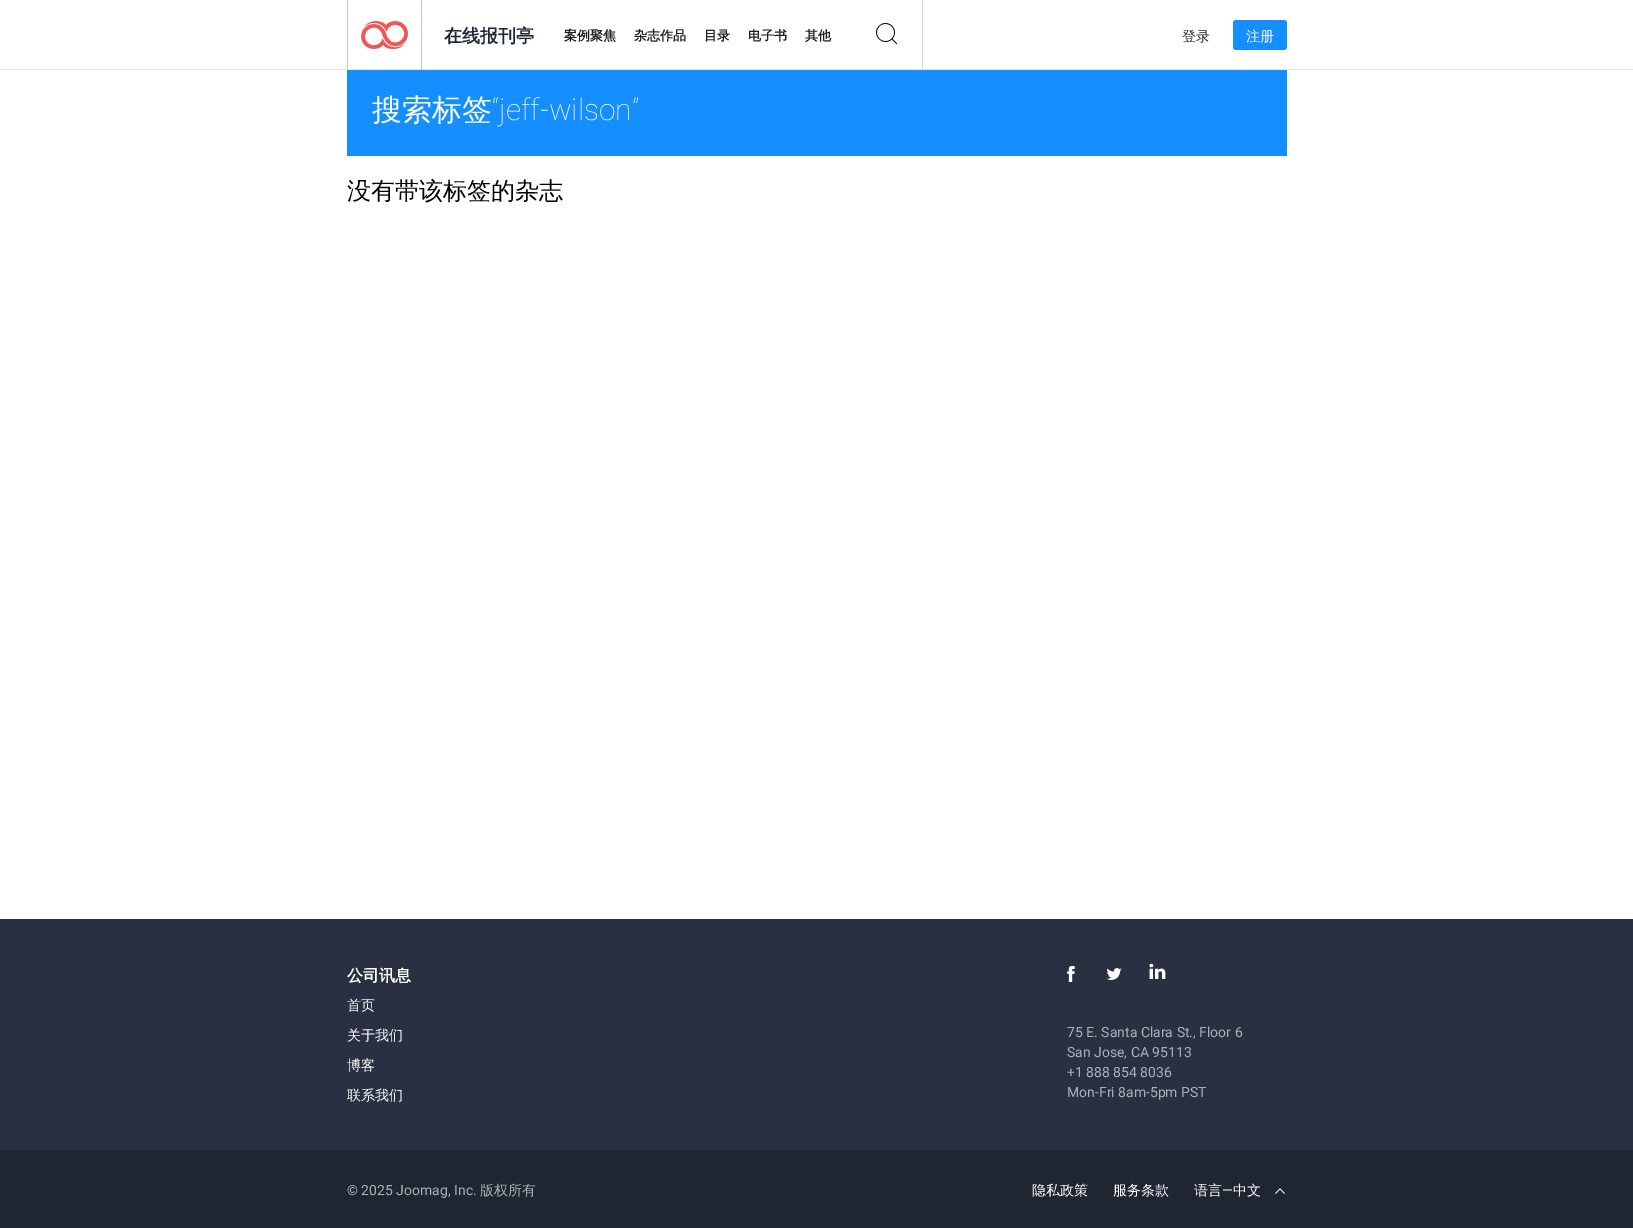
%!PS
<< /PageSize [1633 1228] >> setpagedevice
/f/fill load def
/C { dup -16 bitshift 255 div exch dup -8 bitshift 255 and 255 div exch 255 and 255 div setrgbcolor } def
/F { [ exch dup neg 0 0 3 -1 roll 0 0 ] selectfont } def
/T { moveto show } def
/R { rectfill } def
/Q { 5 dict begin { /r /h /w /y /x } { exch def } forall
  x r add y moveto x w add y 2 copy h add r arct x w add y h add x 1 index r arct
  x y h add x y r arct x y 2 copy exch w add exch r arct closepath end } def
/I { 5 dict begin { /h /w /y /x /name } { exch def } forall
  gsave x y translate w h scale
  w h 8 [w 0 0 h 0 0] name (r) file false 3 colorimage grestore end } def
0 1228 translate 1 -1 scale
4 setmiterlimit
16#FFFFFF C
0 0 1633 1228 R
16#E5E5E5 C
0 69 1633 1 R
16#C6C6C6 C
421 0 1 70 R
347 0 1 70 R
(1.rgb) 361 21 47 28 I
/WenQuanYiZenHei-Bold 18 F
16#1E2638 C
(在线报刊亭) 444 42 T
/WenQuanYiZenHei-Bold 13 F
16#231F20 C
(案例聚焦) 564 40 T
(杂志作品) 634 40 T
(目录) 704 40 T
(电子书) 748 40 T
(其他) 805 40 T
16#D2D7D9 C
922 0 1 69 R
(2.rgb) 876 23 22 22 I
/WenQuanYiZenHei-Medium 14 F
16#202532 C
(登录) 1182 41 T
16#158FFF C
1233 20 54 30 3 Q f
16#FFFFFF C
(注册) 1246 41 T
16#158FFF C
347 70 940 86 R
/WenQuanYiZenHei-Medium 30 F
16#FFFFFF C
(搜索标签) 372 120 T
/Roboto-Thin 30 F
(“jeff-wilson”) 492 120 T
/WenQuanYiZenHei-Medium 24 F
16#000000 C
(没有带该标签的杂志) 347 199 T
16#293042 C
0 919 1633 231 R
/WenQuanYiZenHei-Bold 16 F
16#FFFFFF C
(公司讯息) 347 981 T
/WenQuanYiZenHei-Medium 14 F
(首页) 347 1010 T
(关于我们) 347 1040 T
(博客) 347 1070 T
(联系我们) 347 1100 T
(3.rgb) 1067 966 8 16 I
(4.rgb) 1106 968 16 12 I
(5.rgb) 1149 963 17 16 I
/Roboto-Regular 14 F
16#ABB2B6 C
(75 E. Santa Clara St., Floor 6) 1067 1037 T
(San Jose, CA 95113) 1067 1057 T
(+1 888 854 8036) 1067 1077 T
(Mon-Fri 8am-5pm PST) 1067 1097 T
16#202532 C
0 1150 1633 78 R
16#ABB2B6 C
(© 2025 Joomag, Inc.) 347 1195 T
/WenQuanYiZenHei-Medium 14 F
(版权所有) 480 1195 T
16#FFFFFF C
(隐私政策) 1032 1195 T
(服务条款) 1113 1195 T
(语言) 1194 1195 T
/Roboto-Regular 14 F
(—) 1222 1195 T
/WenQuanYiZenHei-Medium 14 F
(中文) 1233 1195 T
(6.rgb) 1275 1188 10 6 I
showpage
